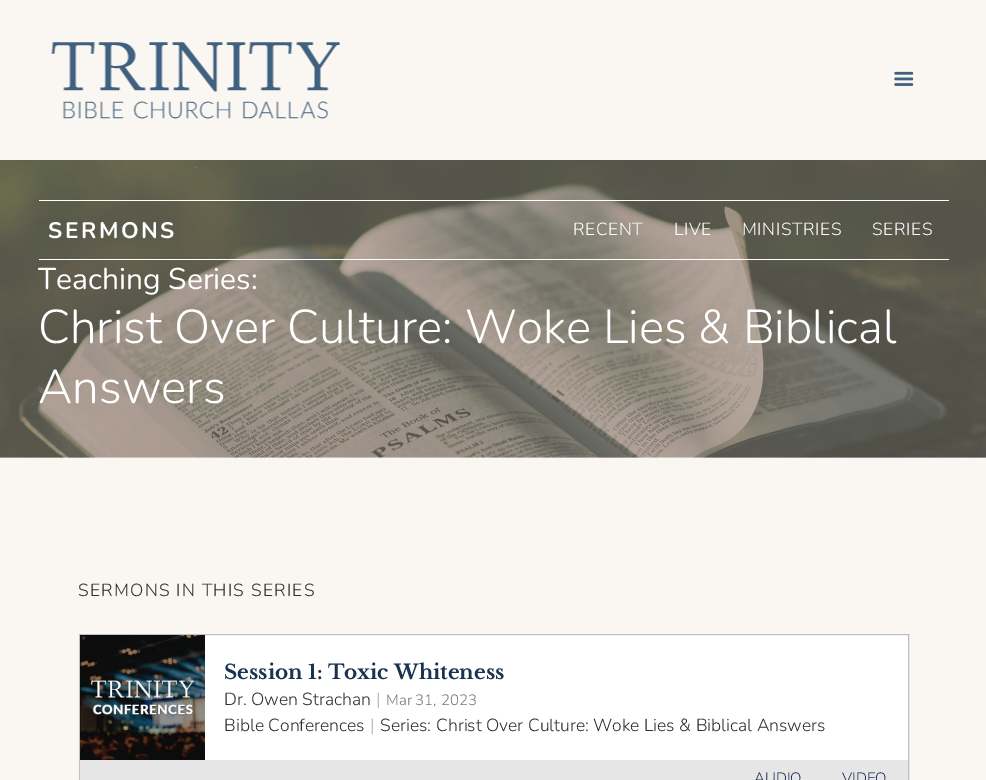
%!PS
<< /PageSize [986 780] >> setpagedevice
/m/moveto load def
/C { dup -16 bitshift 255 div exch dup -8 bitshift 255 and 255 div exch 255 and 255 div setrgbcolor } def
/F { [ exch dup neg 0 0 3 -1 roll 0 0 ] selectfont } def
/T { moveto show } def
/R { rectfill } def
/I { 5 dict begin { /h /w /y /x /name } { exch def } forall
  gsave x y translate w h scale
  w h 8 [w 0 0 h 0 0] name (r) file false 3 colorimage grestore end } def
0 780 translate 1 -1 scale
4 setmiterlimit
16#FFFFFF C
0 0 986 780 R
16#FAF7F2 C
0 0 986 160 R
(1.rgb) 51 42 290 77 I
(2.rgb) 894 71 20 15 I
(3.rgb) 0 160 986 298 I
16#FFFFFF C
39 200 910 1 R
39 259 910 1 R
/Nunito-Bold 22.5 F
48 238 m 2.5 0 (SERMONS) ashow
/Nunito-Light 17.5 F
573 235 m .6 0 (RECENT) ashow
674 235 m .6 0 (LIVE) ashow
742 235 m .6 0 (MINISTRIES) ashow
872 235 m .6 0 (SERIES) ashow
/Nunito-Regular 30 F
(Teaching Series:) 38 289 T
/Nunito-Light 47.5 F
(Christ Over Culture: Woke Lies & Biblical) 38 343 T
(Answers) 38 403 T
16#FAF7F2 C
0 458 986 322 R
/Nunito-Light 17.5 F
16#302D26 C
78 596 m 1.25 0 (SERMONS IN THIS SERIES) ashow
16#FFFFFF C
205 635 703 125 R
16#BFBFBF C
79.5 634.5 829 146 rectstroke
(4.rgb) 80 635 125 125 I
/LibreBaskerville-Bold 20 F
16#1A3150 C
(Session 1: Toxic Whiteness) 224 679 T
/Nunito-Light 17.5 F
16#302D26 C
(Dr. Owen Strachan) 224 705 T
16#AAAAAA C
(|) 376 705 T
/Nunito-Light 15 F
16#757575 C
(Mar 31, 2023) 386 705 T
/Nunito-Light 17.5 F
16#302D26 C
(Bible Conferences) 224 731 T
16#AAAAAA C
(|) 370 731 T
16#302D26 C
(Series:) 380 731 T
(Christ Over Culture: Woke Lies & Biblical Answers) 436 731 T
16#E6E6E6 C
80 760 828 20 R
/Nunito-Light 15 F
16#1A3150 C
(AUDIO) 754 783 T
(VIDEO) 842 783 T
showpage
